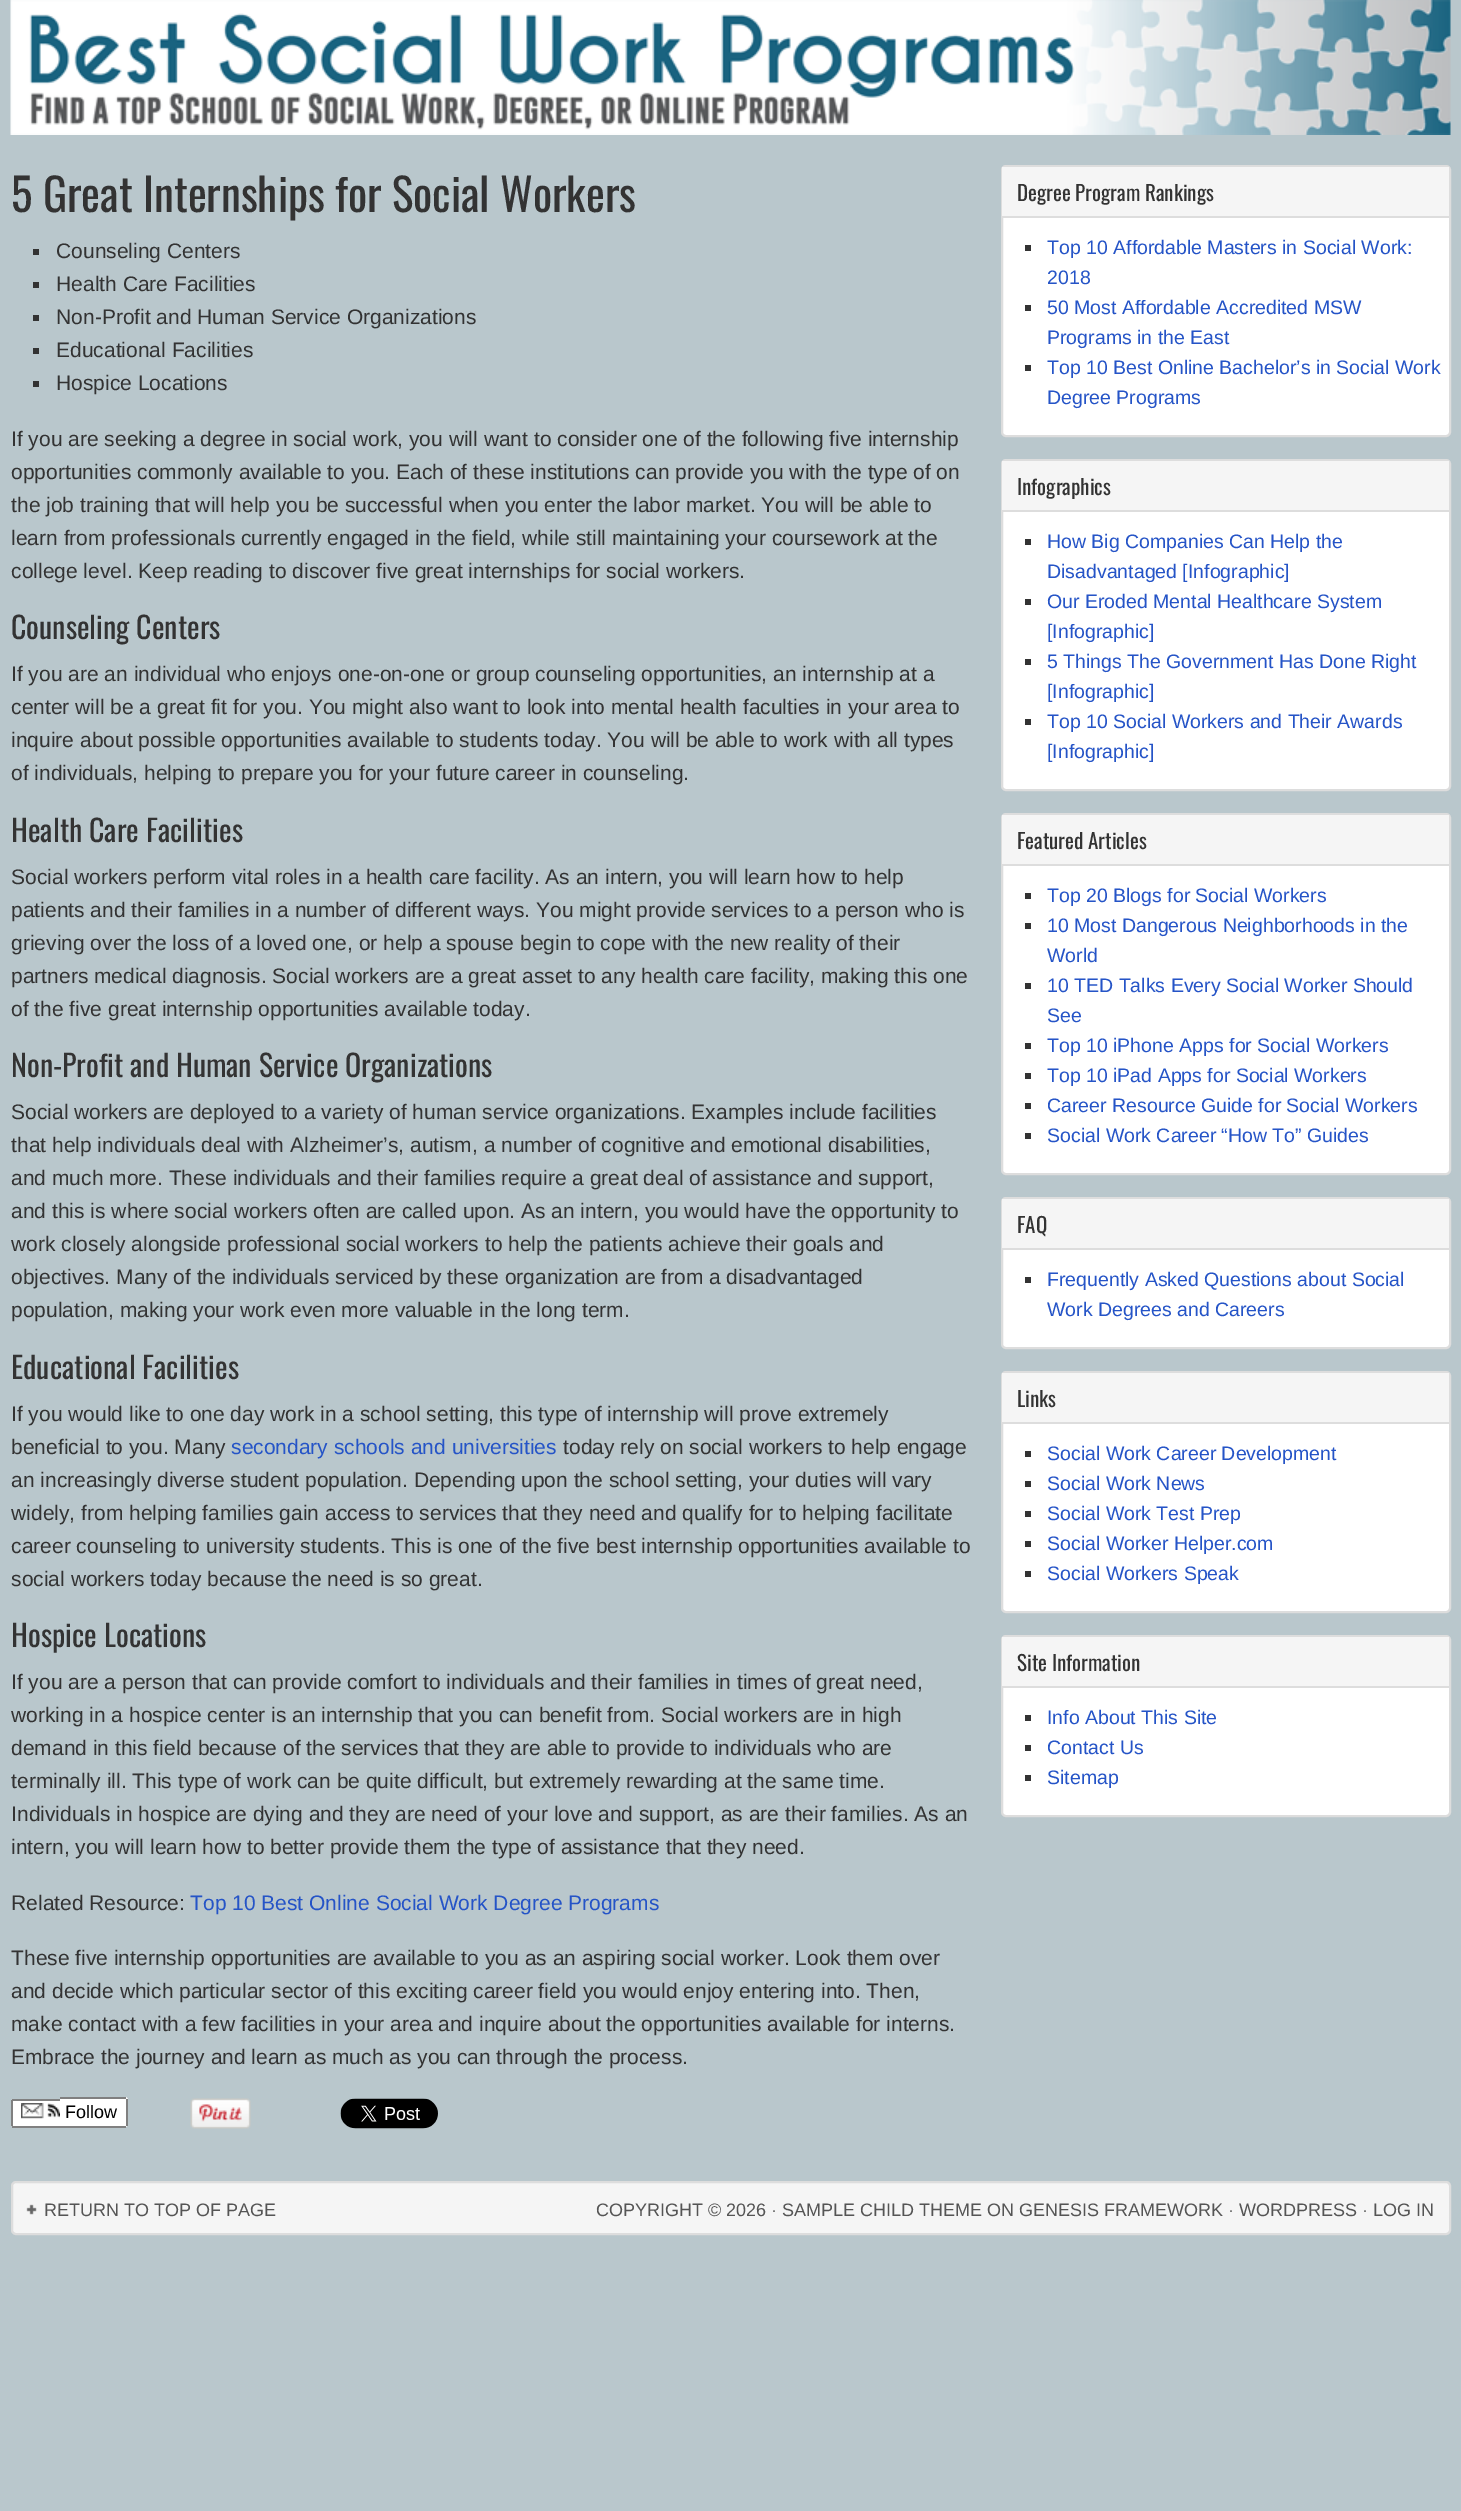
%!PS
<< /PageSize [1461 2511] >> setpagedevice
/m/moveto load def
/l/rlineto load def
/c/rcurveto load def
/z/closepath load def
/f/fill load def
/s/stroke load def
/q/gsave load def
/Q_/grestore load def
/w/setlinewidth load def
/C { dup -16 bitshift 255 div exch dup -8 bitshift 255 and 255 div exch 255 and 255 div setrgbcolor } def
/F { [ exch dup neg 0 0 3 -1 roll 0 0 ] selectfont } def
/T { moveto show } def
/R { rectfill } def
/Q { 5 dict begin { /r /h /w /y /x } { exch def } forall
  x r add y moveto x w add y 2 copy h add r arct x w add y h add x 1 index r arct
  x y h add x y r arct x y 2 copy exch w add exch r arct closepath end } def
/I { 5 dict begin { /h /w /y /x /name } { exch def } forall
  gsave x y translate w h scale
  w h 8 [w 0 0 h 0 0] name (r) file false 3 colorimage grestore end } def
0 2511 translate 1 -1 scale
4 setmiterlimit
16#B9C7CC C
0 0 1461 2511 R
(1.rgb) 10 0 1441 135 I
/Oswald-Regular 45 F
16#333333 C
(5 Great Internships for Social Workers) 11 212 T
33 249 6 6 R
/LiberationSans-Regular 21 F
(Counseling Centers) 56 258 T
33 282 6 6 R
(Health Care Facilities) 56 291 T
33 315 6 6 R
(Non-Profit and Human Service Organizations) 56 324 T
33 348 6 6 R
(Educational Facilities) 56 357 T
33 381 6 6 R
(Hospice Locations) 56 390 T
(If you are seeking a degree in social work, you will want to consider one of the following five internship) 11 446 T
(opportunities commonly available to you. Each of these institutions can provide you with the type of on) 11 479 T
(the job training that will help you be successful when you enter the labor market. You will be able to) 11 512 T
(learn from professionals currently engaged in the field, while still maintaining your coursework at the) 11 545 T
(college level. Keep reading to discover five great internships for social workers.) 11 578 T
/Oswald-Regular 30 F
(Counseling Centers) 11 639 T
/LiberationSans-Regular 21 F
(If you are an individual who enjoys one-on-one or group counseling opportunities, an internship at a) 11 681 T
(center will be a great fit for you. You might also want to look into mental health faculties in your area to) 11 714 T
(inquire about possible opportunities available to students today. You will be able to work with all types) 11 747 T
(of individuals, helping to prepare you for your future career in counseling.) 11 780 T
/Oswald-Regular 30 F
(Health Care Facilities) 11 842 T
/LiberationSans-Regular 21 F
(Social workers perform vital roles in a health care facility. As an intern, you will learn how to help) 11 884 T
(patients and their families in a number of different ways. You might provide services to a person who is) 11 917 T
(grieving over the loss of a loved one, or help a spouse begin to cope with the new reality of their) 11 950 T
(partners medical diagnosis. Social workers are a great asset to any health care facility, making this one) 11 983 T
(of the five great internship opportunities available today.) 11 1016 T
/Oswald-Regular 30 F
(Non-Profit and Human Service Organizations) 11 1077 T
/LiberationSans-Regular 21 F
(Social workers are deployed to a variety of human service organizations. Examples include facilities) 11 1119 T
(that help individuals deal with Alzheimer’s, autism, a number of cognitive and emotional disabilities,) 11 1152 T
(and much more. These individuals and their families require a great deal of assistance and support,) 11 1185 T
(and this is where social workers often are called upon. As an intern, you would have the opportunity to) 11 1218 T
(work closely alongside professional social workers to help the patients achieve their goals and) 11 1251 T
(objectives. Many of the individuals serviced by these organization are from a disadvantaged) 11 1284 T
(population, making your work even more valuable in the long term.) 11 1317 T
/Oswald-Regular 30 F
(Educational Facilities) 11 1379 T
/LiberationSans-Regular 21 F
(If you would like to one day work in a school setting, this type of internship will prove extremely) 11 1421 T
(beneficial to you. Many) 11 1454 T
16#2554C7 C
(secondary schools and universities) 231 1454 T
16#333333 C
(today rely on social workers to help engage) 563 1454 T
(an increasingly diverse student population. Depending upon the school setting, your duties will vary) 11 1487 T
(widely, from helping families gain access to services that they need and qualify for to helping facilitate) 11 1520 T
(career counseling to university students. This is one of the five best internship opportunities available to) 11 1553 T
(social workers today because the need is so great.) 11 1586 T
/Oswald-Regular 30 F
(Hospice Locations) 11 1647 T
/LiberationSans-Regular 21 F
(If you are a person that can provide comfort to individuals and their families in times of great need,) 11 1689 T
(working in a hospice center is an internship that you can benefit from. Social workers are in high) 11 1722 T
(demand in this field because of the services that they are able to provide to individuals who are) 11 1755 T
(terminally ill. This type of work can be quite difficult, but extremely rewarding at the same time.) 11 1788 T
(Individuals in hospice are dying and they are need of your love and support, as are their families. As an) 11 1821 T
(intern, you will learn how to better provide them the type of assistance that they need.) 11 1854 T
(Related Resource:) 11 1910 T
16#2554C7 C
(Top 10 Best Online Social Work Degree Programs) 190 1910 T
16#333333 C
(These five internship opportunities are available to you as an aspiring social worker. Look them over) 11 1965 T
(and decide which particular sector of this exciting career field you would enjoy entering into. Then,) 11 1998 T
(make contact with a few facilities in your area and inquire about the opportunities available for interns.) 11 2031 T
(Embrace the journey and learn as much as you can through the process.) 11 2064 T
16#FFFFFF C
14 2099 m 46 0 l 0 28 l -46 0 l -1.5 0 -3 -1.5 -3 -3 c 0 -22 l 0 -1.5 1.5 -3 3 -3 c z f
(2.rgb) 21 2103 39 16 I
60 2097 m 65 0 l 1.5 0 3 1.5 3 3 c 0 24 l 0 1.5 -1.5 3 -3 3 c -65 0 l z f
/LiberationSans-Regular 18 F
16#000000 C
(Follow) 65 2118 T
16#808080 C
12 2099 48 2 R
12 2126 48 2 R
11 2100 2 26 R
60 2097 66 2 R
126 2099 2 27 R
60 2126 66 2 R
(3.rgb) 190 2098 61 31 I
(4.rgb) 340 2098 98 31 I
16#FFFFFF C
1002 166 448 270 4 Q q f Q_
16#DDDDDD C
2 w
s
16#F5F5F5 C
1002 167 447 49 R
16#DDDDDD C
1002 216 447 2 R
/Oswald-Regular 21 F
16#333333 C
(Degree Program Rankings) 1017 201 T
1025 245 6 6 R
/LiberationSans-Regular 19.5 F
16#2554C7 C
(Top 10 Affordable Masters in Social Work:) 1047 254 T
(2018) 1047 284 T
16#333333 C
1025 305 6 6 R
16#2554C7 C
(50 Most Affordable Accredited MSW) 1047 314 T
(Programs in the East) 1047 344 T
16#333333 C
1025 365 6 6 R
16#2554C7 C
(Top 10 Best Online Bachelor’s in Social Work) 1047 374 T
(Degree Programs) 1047 404 T
16#FFFFFF C
1002 460 448 330 4 Q q f Q_
16#DDDDDD C
s
16#F5F5F5 C
1002 461 447 49 R
16#DDDDDD C
1002 510 447 2 R
/Oswald-Regular 21 F
16#333333 C
(Infographics) 1017 495 T
1025 539 6 6 R
/LiberationSans-Regular 19.5 F
16#2554C7 C
(How Big Companies Can Help the) 1047 548 T
(Disadvantaged [Infographic]) 1047 578 T
16#333333 C
1025 599 6 6 R
16#2554C7 C
(Our Eroded Mental Healthcare System) 1047 608 T
([Infographic]) 1047 638 T
16#333333 C
1025 659 6 6 R
16#2554C7 C
(5 Things The Government Has Done Right) 1047 668 T
([Infographic]) 1047 698 T
16#333333 C
1025 719 6 6 R
16#2554C7 C
(Top 10 Social Workers and Their Awards) 1047 728 T
([Infographic]) 1047 758 T
16#FFFFFF C
1002 814 448 360 4 Q q f Q_
16#DDDDDD C
s
16#F5F5F5 C
1002 815 447 49 R
16#DDDDDD C
1002 864 447 2 R
/Oswald-Regular 21 F
16#333333 C
(Featured Articles) 1017 849 T
1025 893 6 6 R
/LiberationSans-Regular 19.5 F
16#2554C7 C
(Top 20 Blogs for Social Workers) 1047 902 T
16#333333 C
1025 923 6 6 R
16#2554C7 C
(10 Most Dangerous Neighborhoods in the) 1047 932 T
(World) 1047 962 T
16#333333 C
1025 983 6 6 R
16#2554C7 C
(10 TED Talks Every Social Worker Should) 1047 992 T
(See) 1047 1022 T
16#333333 C
1025 1043 6 6 R
16#2554C7 C
(Top 10 iPhone Apps for Social Workers) 1047 1052 T
16#333333 C
1025 1073 6 6 R
16#2554C7 C
(Top 10 iPad Apps for Social Workers) 1047 1082 T
16#333333 C
1025 1103 6 6 R
16#2554C7 C
(Career Resource Guide for Social Workers) 1047 1112 T
16#333333 C
1025 1133 6 6 R
16#2554C7 C
(Social Work Career “How To” Guides) 1047 1142 T
16#FFFFFF C
1002 1198 448 150 4 Q q f Q_
16#DDDDDD C
s
16#F5F5F5 C
1002 1199 447 49 R
16#DDDDDD C
1002 1248 447 2 R
/Oswald-Regular 21 F
16#333333 C
(FAQ) 1017 1233 T
1025 1277 6 6 R
/LiberationSans-Regular 19.5 F
16#2554C7 C
(Frequently Asked Questions about Social) 1047 1286 T
(Work Degrees and Careers) 1047 1316 T
16#FFFFFF C
1002 1372 448 240 4 Q q f Q_
16#DDDDDD C
s
16#F5F5F5 C
1002 1373 447 49 R
16#DDDDDD C
1002 1422 447 2 R
/Oswald-Regular 21 F
16#333333 C
(Links) 1017 1407 T
1025 1451 6 6 R
/LiberationSans-Regular 19.5 F
16#2554C7 C
(Social Work Career Development) 1047 1460 T
16#333333 C
1025 1481 6 6 R
16#2554C7 C
(Social Work News) 1047 1490 T
16#333333 C
1025 1511 6 6 R
16#2554C7 C
(Social Work Test Prep) 1047 1520 T
16#333333 C
1025 1541 6 6 R
16#2554C7 C
(Social Worker Helper.com) 1047 1550 T
16#333333 C
1025 1571 6 6 R
16#2554C7 C
(Social Workers Speak) 1047 1580 T
16#FFFFFF C
1002 1636 448 180 4 Q q f Q_
16#DDDDDD C
s
16#F5F5F5 C
1002 1637 447 49 R
16#DDDDDD C
1002 1686 447 2 R
/Oswald-Regular 21 F
16#333333 C
(Site Information) 1017 1671 T
1025 1715 6 6 R
/LiberationSans-Regular 19.5 F
16#2554C7 C
(Info About This Site) 1047 1724 T
16#333333 C
1025 1745 6 6 R
16#2554C7 C
(Contact Us) 1047 1754 T
16#333333 C
1025 1775 6 6 R
16#2554C7 C
(Sitemap) 1047 1784 T
16#F5F5F5 C
12 2182 1438 52 4 Q q f Q_
16#DDDDDD C
s
(5.rgb) 26 2204 11 11 I
/LiberationSans-Regular 18 F
16#555555 C
(RETURN TO TOP OF PAGE) 44 2216 T
(COPYRIGHT © 2026 · SAMPLE CHILD THEME ON GENESIS FRAMEWORK · WORDPRESS · LOG IN) 596 2216 T
showpage
